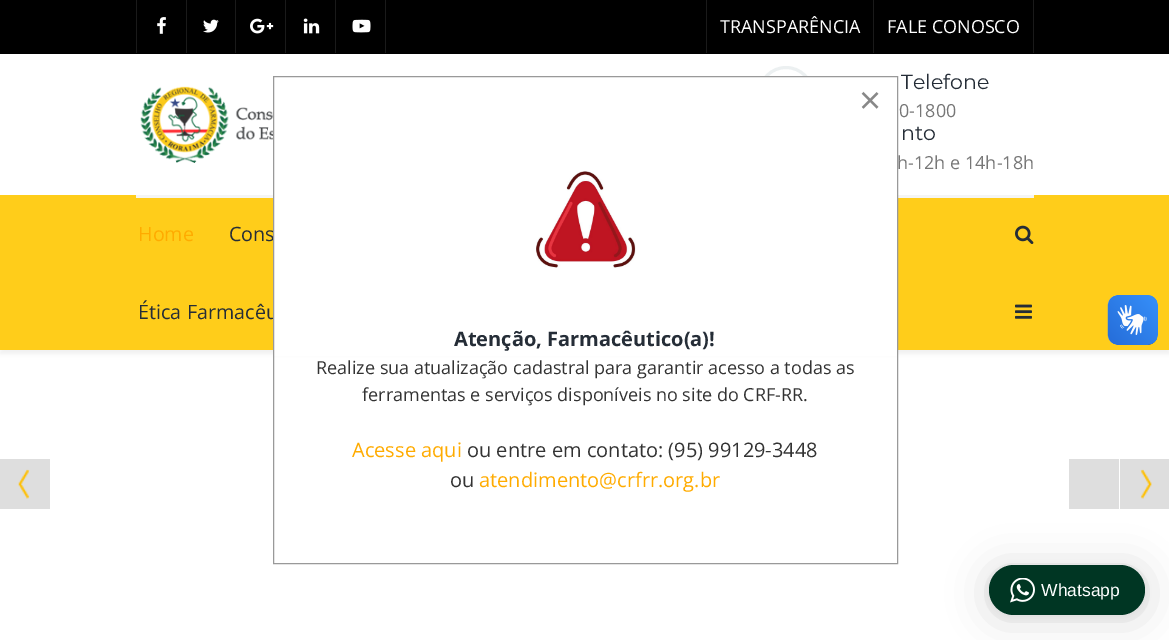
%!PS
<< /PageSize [1169 640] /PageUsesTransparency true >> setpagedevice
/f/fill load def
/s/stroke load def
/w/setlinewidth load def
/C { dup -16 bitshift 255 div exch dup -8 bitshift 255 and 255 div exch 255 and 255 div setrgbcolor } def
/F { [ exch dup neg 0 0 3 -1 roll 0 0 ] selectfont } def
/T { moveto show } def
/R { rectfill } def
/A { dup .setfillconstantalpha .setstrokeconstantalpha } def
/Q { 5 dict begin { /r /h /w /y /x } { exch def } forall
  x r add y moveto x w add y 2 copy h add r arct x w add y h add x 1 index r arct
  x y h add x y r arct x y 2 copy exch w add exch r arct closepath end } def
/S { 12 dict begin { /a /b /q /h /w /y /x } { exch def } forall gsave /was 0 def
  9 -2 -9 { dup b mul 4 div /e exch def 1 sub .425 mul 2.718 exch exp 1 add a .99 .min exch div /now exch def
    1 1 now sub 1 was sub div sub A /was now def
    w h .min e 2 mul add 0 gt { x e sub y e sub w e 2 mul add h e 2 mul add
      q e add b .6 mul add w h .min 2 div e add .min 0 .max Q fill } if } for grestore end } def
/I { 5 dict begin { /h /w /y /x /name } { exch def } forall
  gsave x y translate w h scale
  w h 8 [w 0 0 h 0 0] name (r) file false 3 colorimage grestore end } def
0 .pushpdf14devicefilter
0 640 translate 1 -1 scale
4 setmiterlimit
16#FFFFFF C
0 0 1169 640 R
16#000000 C
0 0 1169 54 R
16#1A1A1A C
186 0 1 53 R
136 0 1 53 R
(1.rgb) 157 17 9 17 I
235 0 1 53 R
(2.rgb) 203 19 16 14 I
285 0 1 53 R
(3.rgb) 250 18 24 16 I
335 0 1 53 R
(4.rgb) 303 18 17 16 I
385 0 1 53 R
(5.rgb) 352 19 19 14 I
16#000000 C
0 199 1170 155 0 2 .05 S
16#FFCD1A C
0 195 1169 155 R
(6.rgb) 1107 295 51 50 I
(7.rgb) 1108 295 50 50 I
16#1A1A1A C
873 0 1 53 R
706 0 1 53 R
/OpenSans-Regular 18 F
16#FFFFFF C
(TRANSPARÊNCIA) 720 33 T
16#1A1A1A C
1033 0 1 53 R
16#FFFFFF C
(FALE CONOSCO) 887 33 T
(8.rgb) 140 86 133 77 I
16#ECF0F1 C
3 w
759.5 67.5 53 54 26.5 Q s
/Montserrat-Regular 20.5 F
16#252D37 C
(Telefone) 901 89 T
/OpenSans-Regular 18 F
16#777777 C
(0-1800) 899 117 T
/Montserrat-Regular 20.5 F
16#252D37 C
(nto) 901 140 T
/OpenSans-Regular 18 F
16#777777 C
(h-12h e 14h-18h) 897 169 T
16#F5F5F5 C
136 195 898 3 R
/OpenSans-Regular 19.75 F
16#FFAB00 C
(Home) 138 241 T
16#252D37 C
(Cons) 229 241 T
(Ética Farmacêu) 138 319 T
(9.rgb) 1015 225 19 19 I
(10.rgb) 1015 304 17 15 I
16#DEDEDE C
0 459 50 50 R
(11.rgb) 18 469 12 30 I
1069 459 50 50 R
1120 459 49 50 R
(12.rgb) 1140 469 12 30 I
16#000000 C
989 568 156 50 25 20 .16 S
989 566 156 50 25 4 .06 S
16#003623 C
989 565 156 50 25 Q f
(13.rgb) 1010 578 25 25 I
/LiberationSans-Regular 17.5 F
16#FFFFFF C
(Whatsapp) 1041 596 T
274 77 623 279 R
16#999999 C
1 w
273.5 76.5 624 487 rectstroke
/LiberationSans-Regular 38 F
16#888888 C
(×) 859 113 T
(14.rgb) 536 171 100 97 I
/OpenSans-Bold 20 F
16#252D37 C
(Atenção, Farmacêutico\(a\)!) 454 346 T
/OpenSans-Regular 18 F
16#333333 C
(Realize sua atualização cadastral para garantir acesso a todas as) 316 374 T
(ferramentas e serviços disponíveis no site do CRF-RR.) 362 401 T
/OpenSans-Regular 20 F
16#FFAB00 C
(Acesse aqui) 352 457 T
16#333333 C
(ou entre em contato: \(95\) 99129-3448) 467 457 T
(ou) 450 487 T
16#FFAB00 C
(atendimento@crfrr.org.br) 479 487 T
.poppdf14devicefilter showpage
